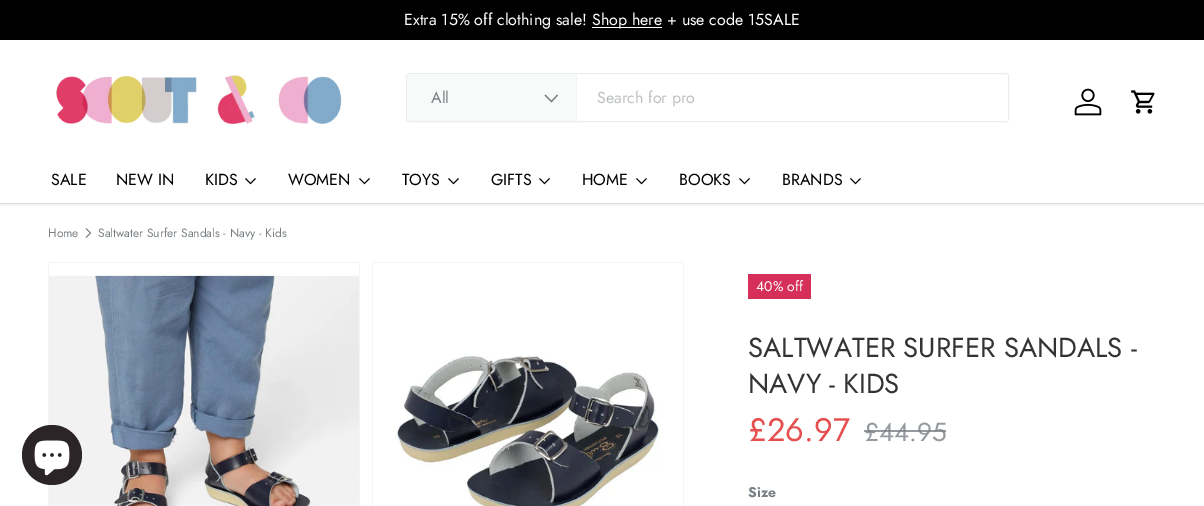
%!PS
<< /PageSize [1204 506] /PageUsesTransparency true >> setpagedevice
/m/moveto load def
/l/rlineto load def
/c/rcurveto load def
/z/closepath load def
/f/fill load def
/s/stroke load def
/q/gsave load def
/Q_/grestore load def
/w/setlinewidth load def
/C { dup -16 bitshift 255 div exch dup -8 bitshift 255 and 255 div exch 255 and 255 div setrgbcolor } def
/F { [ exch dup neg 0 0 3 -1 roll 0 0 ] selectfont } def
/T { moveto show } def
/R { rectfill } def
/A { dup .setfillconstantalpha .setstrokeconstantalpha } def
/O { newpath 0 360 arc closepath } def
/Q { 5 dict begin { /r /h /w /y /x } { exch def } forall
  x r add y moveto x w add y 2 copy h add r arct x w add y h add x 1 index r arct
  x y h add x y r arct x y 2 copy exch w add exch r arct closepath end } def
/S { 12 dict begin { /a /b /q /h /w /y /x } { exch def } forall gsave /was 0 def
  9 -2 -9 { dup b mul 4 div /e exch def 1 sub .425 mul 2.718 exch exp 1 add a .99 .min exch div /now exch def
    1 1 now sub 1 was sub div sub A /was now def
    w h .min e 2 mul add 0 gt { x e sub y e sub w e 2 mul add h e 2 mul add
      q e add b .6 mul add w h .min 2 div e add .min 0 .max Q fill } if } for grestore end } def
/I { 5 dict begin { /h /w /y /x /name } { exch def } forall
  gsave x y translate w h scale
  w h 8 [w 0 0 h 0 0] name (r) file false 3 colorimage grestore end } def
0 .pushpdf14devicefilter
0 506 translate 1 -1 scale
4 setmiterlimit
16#FFFFFF C
0 0 1204 506 R
q
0 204 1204 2 rectclip
16#000000 C
-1 39 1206 166 0 1.5 .08 S
Q_
16#000000 C
0 0 1204 40 R
/Jost-Regular 16 F
16#FFFFFF C
(Extra 15% off clothing sale!) 404 25 T
592 27 70 1 R
(Shop here + use code 15SALE) 592 25 T
(1.rgb) 56 75 286 49 I
16#EBECED C
406.5 73.5 602 48 2.5 Q s
16#F8F9F9 C
410 74 m 167 0 l 0 47 l -167 0 l -1.5 0 -3 -1.5 -3 -3 c 0 -41 l 0 -1.5 1.5 -3 3 -3 c z f
16#F2F3F3 C
576 74 1 47 R
16#7A8084 C
(All) 431 103 T
1.2 w
557.5 95 m -6 6.5 l -6.5 -6.5 l s
16#BDC0C2 C
(Search for pro) 597 103 T
(2.rgb) 1074 88 28 28 I
(3.rgb) 1131 90 24 24 I
16#000000 C
(SALE) 51 185 T
(NEW IN) 116 185 T
(KIDS) 205 185 T
1 w
255.5 178.5 m -5 5 l -5 -5 l s
(WOMEN) 288 185 T
369.5 178.5 m -5 5 l -5 -5 l s
(TOYS) 402 185 T
458.5 178.5 m -5 5 l -5 -5 l s
(GIFTS) 491 185 T
549.5 178.5 m -5 5 l -5 -5 l s
(HOME) 582 185 T
646.5 178.5 m -5 5 l -5 -5 l s
(BOOKS) 679 185 T
749.5 178.5 m -5 5 l -5 -5 l s
(BRANDS) 782 185 T
860.5 178.5 m -5 5 l -5 -5 l s
16#D9D9D9 C
0 203 1204 1 R
/Jost-Regular 12 F
16#7A8084 C
(Home) 48 237 T
.9 w
86 228.5 m 4.5 4.5 l -4.5 4.5 l s
(Saltwater Surfer Sandals - Navy - Kids) 98 237 T
16#F4F4F4 C
48 262 312 244 R
(4.rgb) 49 263 310 243 I
372 262 312 244 R
(5.rgb) 373 263 310 243 I
16#D52F5A C
748 274 63 25 R
/Jost-Regular 14 F
16#FFFFFF C
(40% off) 756 291 T
/Jost-Regular 27.5 F
16#333333 C
(SALTWATER SURFER SANDALS -) 748 357 T
(NAVY - KIDS) 748 393 T
/Jost-Regular 32.5 F
16#E64F4F C
(£26.97) 748 441 T
/Jost-Regular 26 F
16#95999D C
(£44.95) 864 441 T
0.8 A
16#7A8084 C
864 430 82 2 R
/Jost-Bold 14 F
1 A
(Size) 748 497 T
16#2C2528 C
52 455 30 O f
(6.rgb) 34 440 36 36 I
.poppdf14devicefilter showpage
